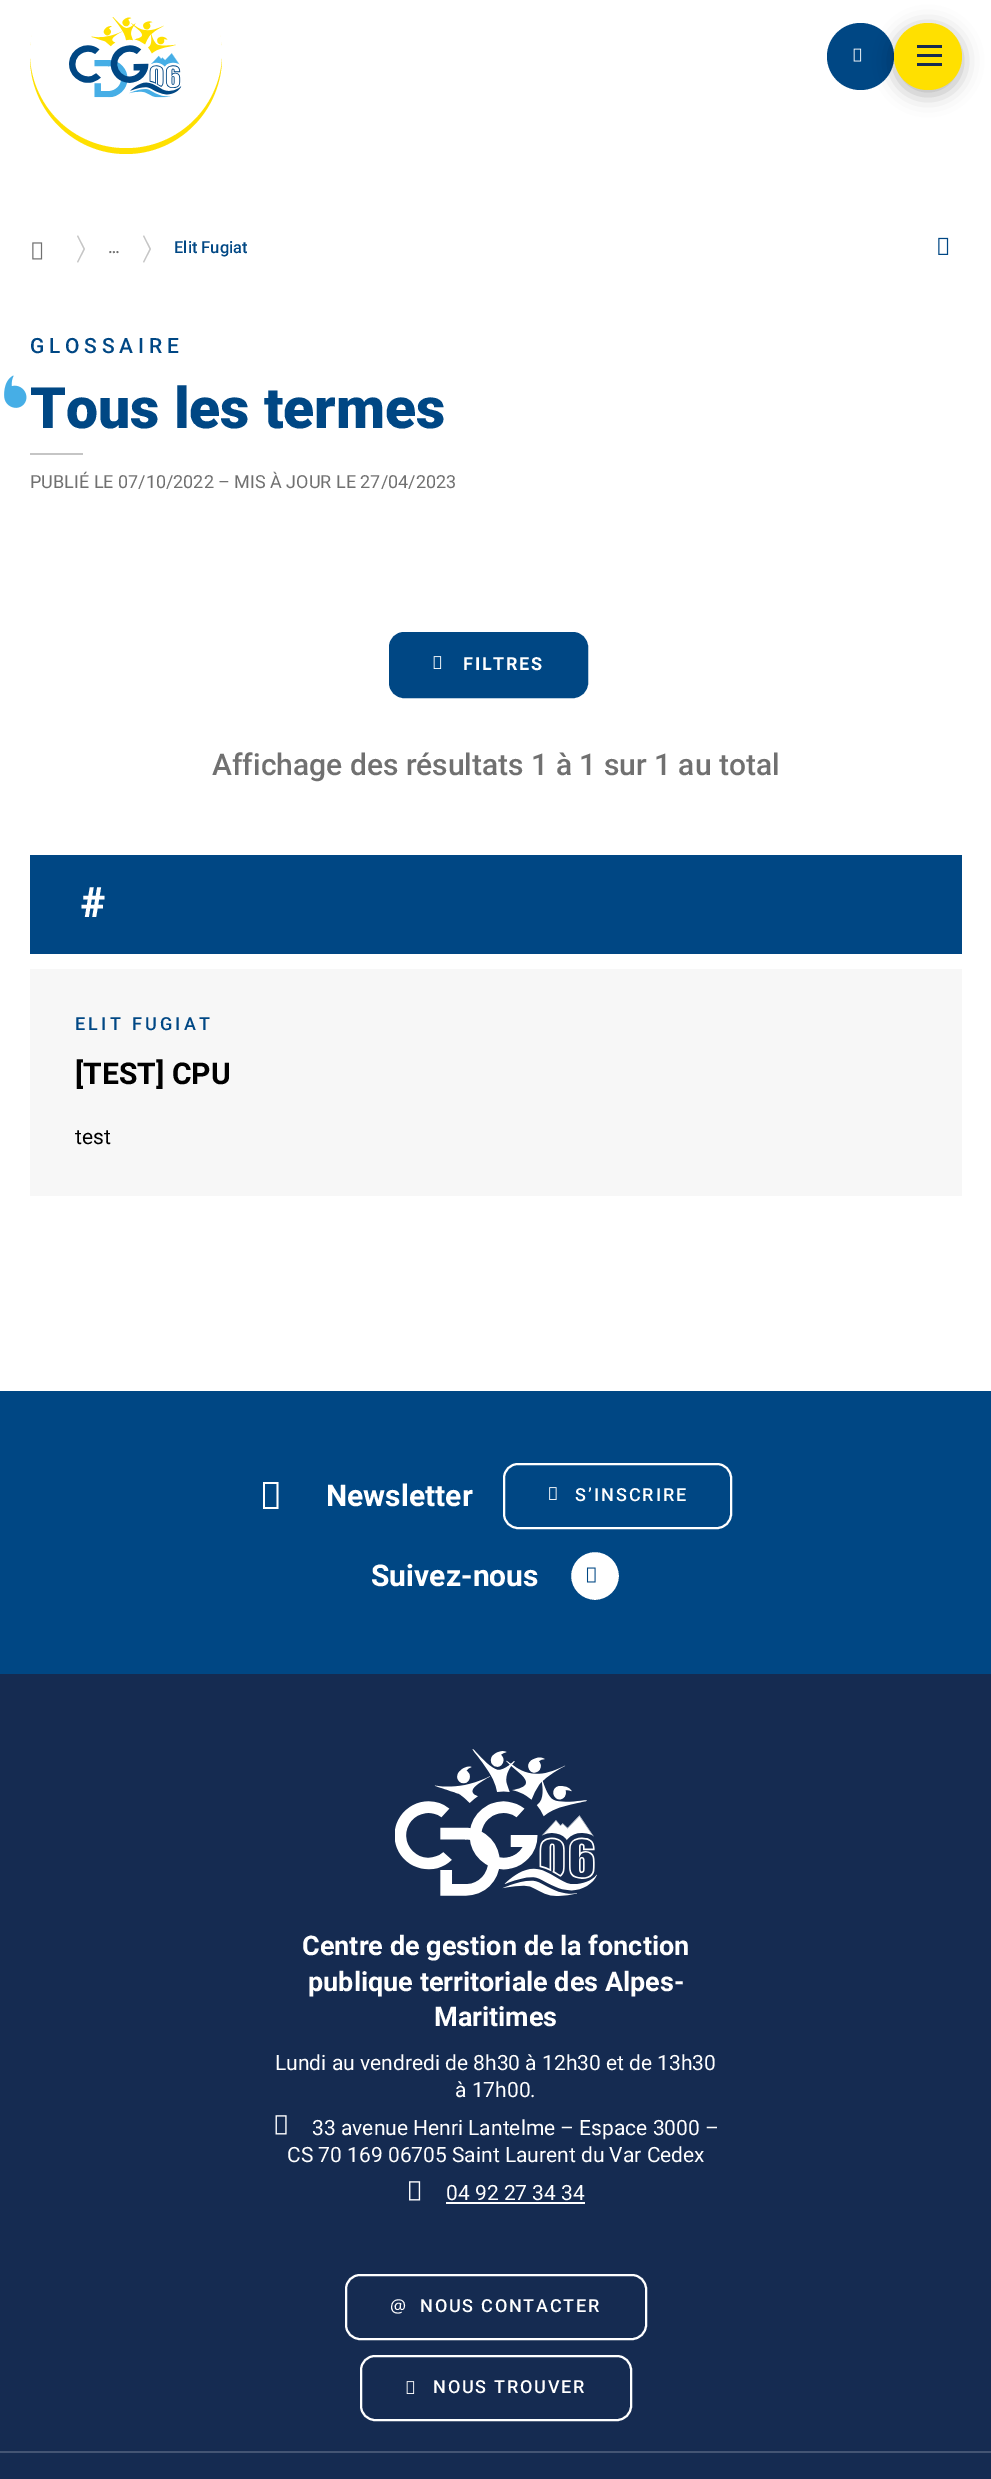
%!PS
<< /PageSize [991 2479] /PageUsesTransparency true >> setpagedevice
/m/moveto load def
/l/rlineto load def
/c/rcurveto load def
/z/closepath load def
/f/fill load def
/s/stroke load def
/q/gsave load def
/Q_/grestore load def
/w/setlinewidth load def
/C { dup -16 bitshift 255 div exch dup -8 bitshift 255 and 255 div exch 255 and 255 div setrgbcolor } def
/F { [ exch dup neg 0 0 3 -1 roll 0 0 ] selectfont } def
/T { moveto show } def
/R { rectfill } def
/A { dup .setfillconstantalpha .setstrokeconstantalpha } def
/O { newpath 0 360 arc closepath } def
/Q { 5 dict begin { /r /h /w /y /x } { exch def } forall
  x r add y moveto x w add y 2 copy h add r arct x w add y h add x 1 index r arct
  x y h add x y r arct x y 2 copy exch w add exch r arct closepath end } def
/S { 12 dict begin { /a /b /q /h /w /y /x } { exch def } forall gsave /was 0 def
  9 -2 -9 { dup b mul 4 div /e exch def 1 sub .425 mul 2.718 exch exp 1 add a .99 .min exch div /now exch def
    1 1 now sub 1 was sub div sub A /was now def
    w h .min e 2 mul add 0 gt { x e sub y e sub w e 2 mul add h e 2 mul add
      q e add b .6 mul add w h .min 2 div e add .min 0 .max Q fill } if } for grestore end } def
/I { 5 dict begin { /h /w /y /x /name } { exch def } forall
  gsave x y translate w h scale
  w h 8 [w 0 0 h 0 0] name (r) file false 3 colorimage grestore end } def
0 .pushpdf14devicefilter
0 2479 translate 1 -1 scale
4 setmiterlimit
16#FFFFFF C
0 0 991 2479 R
16#FFE000 C
214 18 m 6 12 8 25 8 39 c 0 53 -43 97 -96 97 c -53 0 -96 -44 -96 -97 c 0 -14 2 -27 8 -39 c z f
16#FFFFFF C
216 18 m 4 11 6 22 6 34 c 0 53 -43 96 -96 96 c -53 0 -96 -43 -96 -96 c 0 -12 2 -23 6 -34 c z f
(1.rgb) 69 17 113 81 I
16#004784 C
860.5 56.5 33.5 O f
(2.rgb) 853 48 9 14 I
16#000000 C
894 27 68 68 34 10 .28 S
16#FFE000 C
894 23 68 67 33.5 Q f
16#152B51 C
917 45 25 3 R
917 54 25 3 R
917 63 25 3 R
(3.rgb) 32 242 11 18 I
16#C5C5C5 C
78 262.5 m -1 -.5 l 6.5 -13 l -6.5 -13 l 1 -.5 l 7 13.5 l z f
/Roboto-Medium 16.5 F
16#707070 C
(…) 108 253 T
16#C5C5C5 C
144 262.5 m -1 -.5 l 6.5 -13 l -6.5 -13 l 1 -.5 l 7 13.5 l z f
16#004784 C
(Elit Fugiat) 174 253 T
(4.rgb) 938 237 11 18 I
/Roboto-Medium 21 F
30 353 m 4.75 0 (GLOSSAIRE) ashow
(5.rgb) 4 375 23 33 I
/Roboto-Black 57 F
(Tous les termes) 30 428 T
16#C5C5C5 C
30 453 53 2 R
/Roboto-Regular 18 F
16#707070 C
(PUBLIÉ LE 07/10/2022 – MIS À JOUR LE 27/04/2023) 30 488 T
16#004784 C
390 633 197 64 14 Q q f Q_
2 w
s
(6.rgb) 433 656 9 13 I
/Roboto-Bold 18 F
16#FFFFFF C
463 670 m 1.75 0 (FILTRES) ashow
/Roboto-Medium 30 F
16#707070 C
(Affichage des résultats 1 à 1 sur 1 au total) 212 775 T
16#004784 C
30 855 932 99 R
/Roboto-Black 42 F
16#FFFFFF C
(#) 81 917 T
16#F7F7F7 C
30 969 932 227 R
/Roboto-Medium 18 F
16#004784 C
75 1030 m 3.25 0 (ELIT FUGIAT) ashow
/Roboto-Bold 30 F
16#000000 C
([TEST] CPU) 75 1084 T
/Roboto-Regular 21 F
(test) 75 1144 T
16#004784 C
0 1391 991 283 R
16#FFFFFF C
263 1509 m 0 -27 l 15.5 0 l 0 27 l z 265 1507 m 11.5 0 l 0 -23 l -11.5 0 l z f
/Roboto-Bold 30 F
(Newsletter) 326 1506 T
504 1464 227 64 14 Q s
(7.rgb) 549 1487 8 13 I
/Roboto-Medium 18 F
575 1501 m 2 0 (S’INSCRIRE) ashow
/Roboto-Bold 30 F
(Suivez-nous) 371 1586 T
595 1576 25 O q f Q_
16#004784 C
s
(8.rgb) 586 1567 10 16 I
16#152B51 C
0 1674 991 777 R
(9.rgb) 395 1749 202 147 I
/Roboto-Bold 27 F
16#FFFFFF C
(Centre de gestion de la fonction) 302 1955 T
(publique territoriale des Alpes-) 308 1991 T
(Maritimes) 434 2026 T
/Roboto-Regular 21 F
(Lundi au vendredi de 8h30 à 12h30 et de 13h30) 275 2070 T
(à 17h00.) 455 2097 T
(10.rgb) 275 2115 12 20 I
(33 avenue Henri Lantelme – Espace 3000 –) 312 2135 T
(CS 70 169 06705 Saint Laurent du Var Cedex) 287 2162 T
(11.rgb) 409 2181 12 20 I
(04 92 27 34 34) 446 2200 T
446 2202 139 2 R
346 2275 300 64 14 Q s
/NotoSans-Regular 18 F
(@) 390 2312 T
/Roboto-Medium 18 F
420 2312 m 1.75 0 (NOUS CONTACTER) ashow
361 2356 270 64 14 Q s
(12.rgb) 406 2381 9 13 I
433 2393 m 1.75 0 (NOUS TROUVER) ashow
16#152B51 C
0 2453 991 26 R
16#445574 C
0 2451 991 2 R
.poppdf14devicefilter showpage
